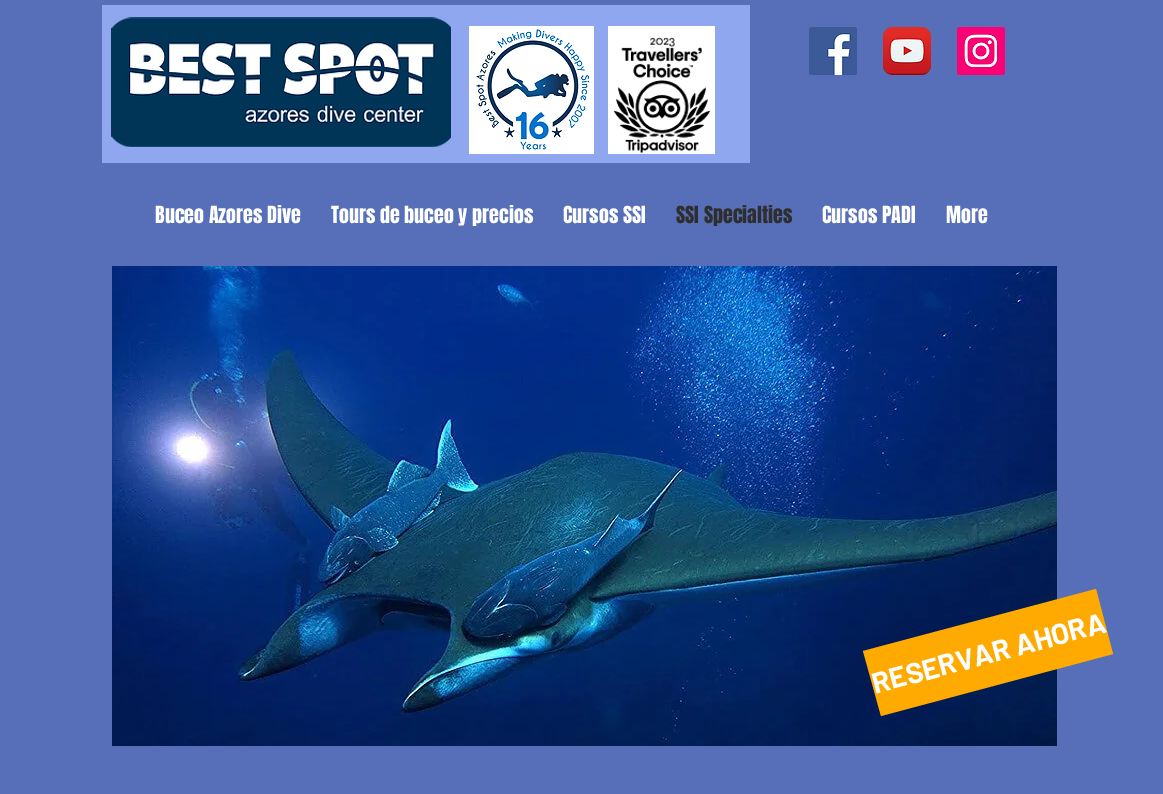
%!PS
<< /PageSize [1163 794] >> setpagedevice
/m/moveto load def
/l/rlineto load def
/z/closepath load def
/f/fill load def
/q/gsave load def
/Q_/grestore load def
/C { dup -16 bitshift 255 div exch dup -8 bitshift 255 and 255 div exch 255 and 255 div setrgbcolor } def
/F { [ exch dup neg 0 0 3 -1 roll 0 0 ] selectfont } def
/T { moveto show } def
/R { rectfill } def
/I { 5 dict begin { /h /w /y /x /name } { exch def } forall
  gsave x y translate w h scale
  w h 8 [w 0 0 h 0 0] name (r) file false 3 colorimage grestore end } def
0 794 translate 1 -1 scale
4 setmiterlimit
16#566FB8 C
0 0 1163 794 R
16#8FA7EF C
102 5 648 158 R
(1.rgb) 111 17 340 130 I
(2.rgb) 469 26 125 128 I
(3.rgb) 608 26 107 128 I
(4.rgb) 809 27 48 48 I
(5.rgb) 883 27 48 48 I
(6.rgb) 957 27 48 48 I
/Anton-Regular 20 F
16#FFFFFF C
(Buceo Azores Dive) 155 223 T
(Tours de buceo y precios) 331 223 T
(Cursos SSI) 563 223 T
16#2F2E2E C
(SSI Specialties) 676 223 T
16#FFFFFF C
(Cursos PADI) 822 223 T
(More) 946 223 T
(7.rgb) 112 266 945 480 I
16#FFAA00 C
863 651 m 233 -62 l 17 65 l -232 62 l z f
/Barlow-Bold 29 F
16#FFFFFF C
q 875 694 translate -15 rotate 0 0 m (RESERVAR AHORA) show Q_
showpage
